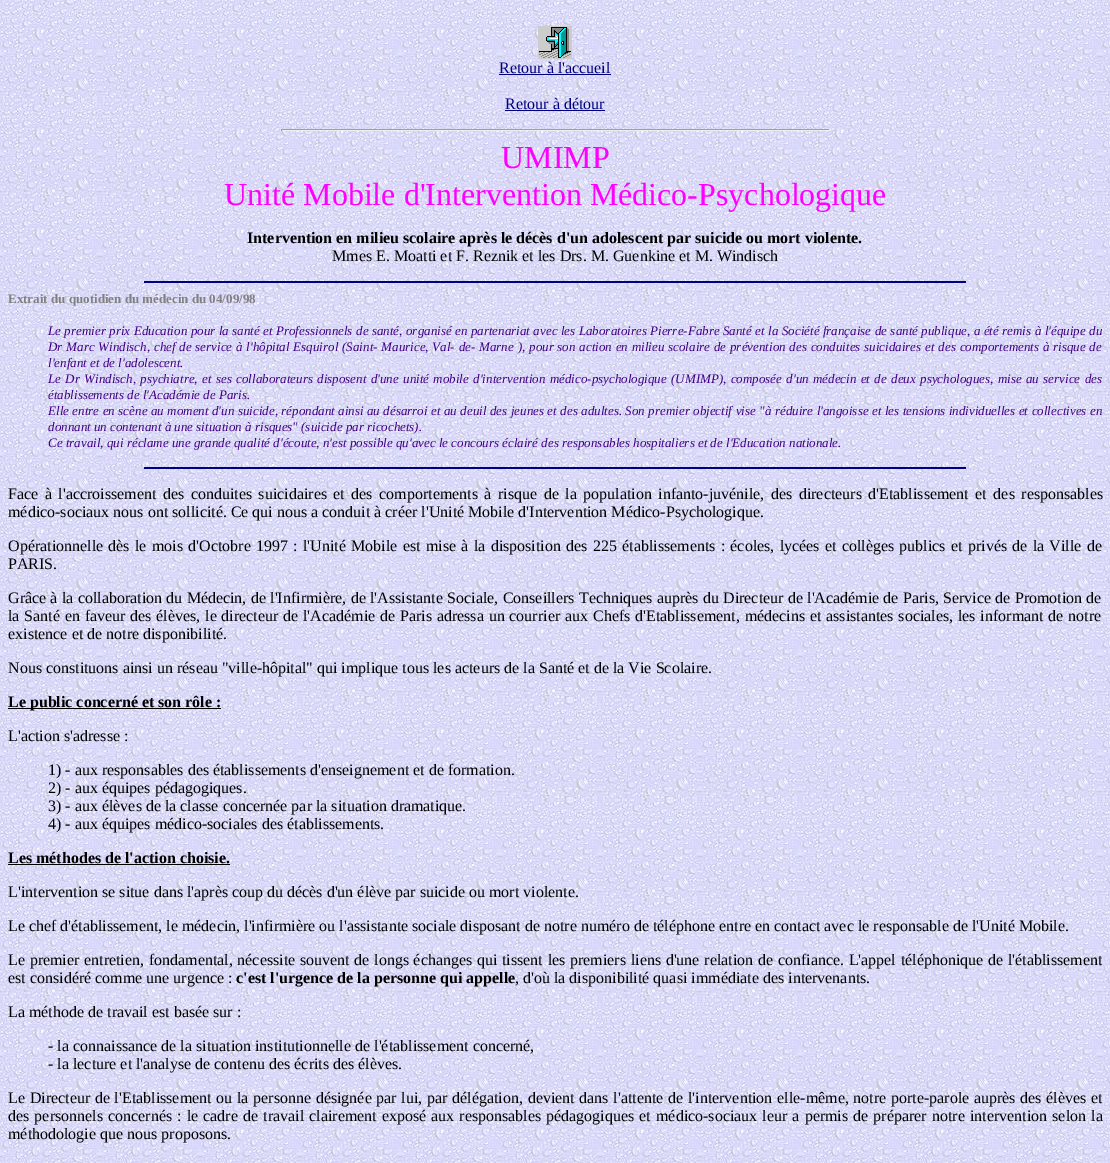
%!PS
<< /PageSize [1110 1163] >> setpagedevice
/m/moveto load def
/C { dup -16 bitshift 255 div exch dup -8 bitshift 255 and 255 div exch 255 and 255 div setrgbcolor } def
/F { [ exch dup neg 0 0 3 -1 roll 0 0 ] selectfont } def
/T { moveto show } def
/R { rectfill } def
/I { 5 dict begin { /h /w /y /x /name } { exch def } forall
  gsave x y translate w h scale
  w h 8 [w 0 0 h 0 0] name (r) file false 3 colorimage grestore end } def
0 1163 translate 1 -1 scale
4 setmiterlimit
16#FFFFFF C
0 0 1110 1163 R
(1.rgb) 0 0 1110 1163 I
(2.rgb) 538 26 34 33 I
/LiberationSerif-Regular 16 F
16#000080 C
(Retour à l'accueil) 499 73 T
499 74 112 1 R
(Retour à détour) 505 109 T
505 110 100 1 R
16#9F9F9F C
281 129 549 1 R
16#EEEEEE C
829 129 1 2 R
281 130 549 1 R
16#9F9F9F C
281 129 1 2 R
/LiberationSerif-Regular 32 F
16#FF00FF C
(UMIMP) 501 168 T
(Unité Mobile d'Intervention Médico-Psychologique) 224 205 T
/LiberationSerif-Bold 16 F
16#000000 C
(Intervention en milieu scolaire après le décès d'un adolescent par suicide ou mort violente.) 247 243 T
/LiberationSerif-Regular 16 F
(Mmes E. Moatti et F. Reznik et les Drs. M. Guenkine et M. Windisch) 332 261 T
16#000080 C
144 281 822 2 R
/LiberationSerif-Bold 13 F
16#808080 C
(Extrait du quotidien du médecin du 04/09/98) 8 303 T
/LiberationSerif-Italic 13 F
16#400080 C
48 335 m .25 0 32 (Le premier prix Education pour la santé et Professionnels de santé, organisé en partenariat avec les Laboratoires Pierre-Fabre Santé et la Société française de santé publique, a été remis à l'équipe du) widthshow
48 351 m .6 0 32 (Dr Marc Windisch, chef de service à l'hôpital Esquirol \(Saint- Maurice, Val- de- Marne \), pour son action en milieu scolaire de prévention des conduites suicidaires et des comportements à risque de) widthshow
(l'enfant et de l'adolescent.) 48 367 T
48 383 m 1.15 0 32 (Le Dr Windisch, psychiatre, et ses collaborateurs disposent d'une unité mobile d'intervention médico-psychologique \(UMIMP\), composée d'un médecin et de deux psychologues, mise au service des) widthshow
(établissements de l'Académie de Paris.) 48 399 T
48 415 m .25 0 32 (Elle entre en scène au moment d'un suicide, répondant ainsi au désarroi et au deuil des jeunes et des adultes. Son premier objectif vise "à réduire l'angoisse et les tensions individuelles et collectives en) widthshow
(donnant un contenant à une situation à risques" \(suicide par ricochets\).) 48 431 T
(Ce travail, qui réclame une grande qualité d'écoute, n'est possible qu'avec le concours éclairé des responsables hospitaliers et de l'Education nationale.) 48 447 T
16#000080 C
144 467 822 2 R
/LiberationSerif-Regular 16 F
16#000000 C
8 499 m 2.5 0 32 (Face à l'accroissement des conduites suicidaires et des comportements à risque de la population infanto-juvénile, des directeurs d'Etablissement et des responsables) widthshow
(médico-sociaux nous ont sollicité. Ce qui nous a conduit à créer l'Unité Mobile d'Intervention Médico-Psychologique.) 8 517 T
8 551 m 1.3 0 32 (Opérationnelle dès le mois d'Octobre 1997 : l'Unité Mobile est mise à la disposition des 225 établissements : écoles, lycées et collèges publics et privés de la Ville de) widthshow
(PARIS.) 8 569 T
8 603 m .25 0 32 (Grâce à la collaboration du Médecin, de l'Infirmière, de l'Assistante Sociale, Conseillers Techniques auprès du Directeur de l'Académie de Paris, Service de Promotion de) widthshow
8 621 m .8 0 32 (la Santé en faveur des élèves, le directeur de l'Académie de Paris adressa un courrier aux) widthshow
593 621 m .8 0 32 (Chefs d'Etablissement, médecins et assistantes sociales, les informant de notre) widthshow
(existence et de notre disponibilité.) 8 639 T
(Nous constituons ainsi un réseau "ville-hôpital" qui implique tous les acteurs de la Santé et de la Vie Scolaire.) 8 673 T
8 708 213 1 R
/LiberationSerif-Bold 16 F
(Le public concerné et son rôle :) 8 707 T
/LiberationSerif-Regular 16 F
(L'action s'adresse :) 8 741 T
(1\) - aux responsables des établissements d'enseignement et de formation.) 48 775 T
(2\) - aux équipes pédagogiques.) 48 793 T
(3\) - aux élèves de la classe concernée par la situation dramatique.) 48 811 T
(4\) - aux équipes médico-sociales des établissements.) 48 829 T
/LiberationSerif-Bold 16 F
(Les méthodes de l'action choisie.) 8 863 T
8 864 222 1 R
/LiberationSerif-Regular 16 F
(L'intervention se situe dans l'après coup du décès d'un élève par suicide ou mort violente.) 8 897 T
(Le chef d'établissement, le médecin, l'infirmière ou l'assistante sociale disposant de notre numéro de téléphone entre en contact avec le responsable de l'Unité Mobile.) 8 931 T
8 965 m .7 0 32 (Le premier entretien, fondamental, nécessite souvent de longs échanges qui tissent les premiers liens d'une relation de confiance. L'appel téléphonique de l'établissement) widthshow
(est considéré comme une urgence :) 8 983 T
/LiberationSerif-Bold 16 F
(c'est l'urgence de la personne qui appelle) 236 983 T
/LiberationSerif-Regular 16 F
(, d'où la disponibilité quasi immédiate des intervenants.) 515 983 T
(La méthode de travail est basée sur :) 8 1017 T
(- la connaissance de la situation institutionnelle de l'établissement concerné,) 48 1051 T
(- la lecture et l'analyse de contenu des écrits des élèves.) 48 1069 T
8 1103 m .7 0 32 (Le Directeur de l'Etablissement ou la personne désignée par lui, par délégation, devient dans l'attente de l'intervention elle-même, notre porte-parole auprès des élèves et) widthshow
8 1121 m 1.1 0 32 (des personnels concernés : le cadre de travail clairement exposé aux responsables pédagogiques et médico-sociaux leur a permis de préparer notre intervention selon la) widthshow
(méthodologie que nous proposons.) 8 1139 T
showpage
